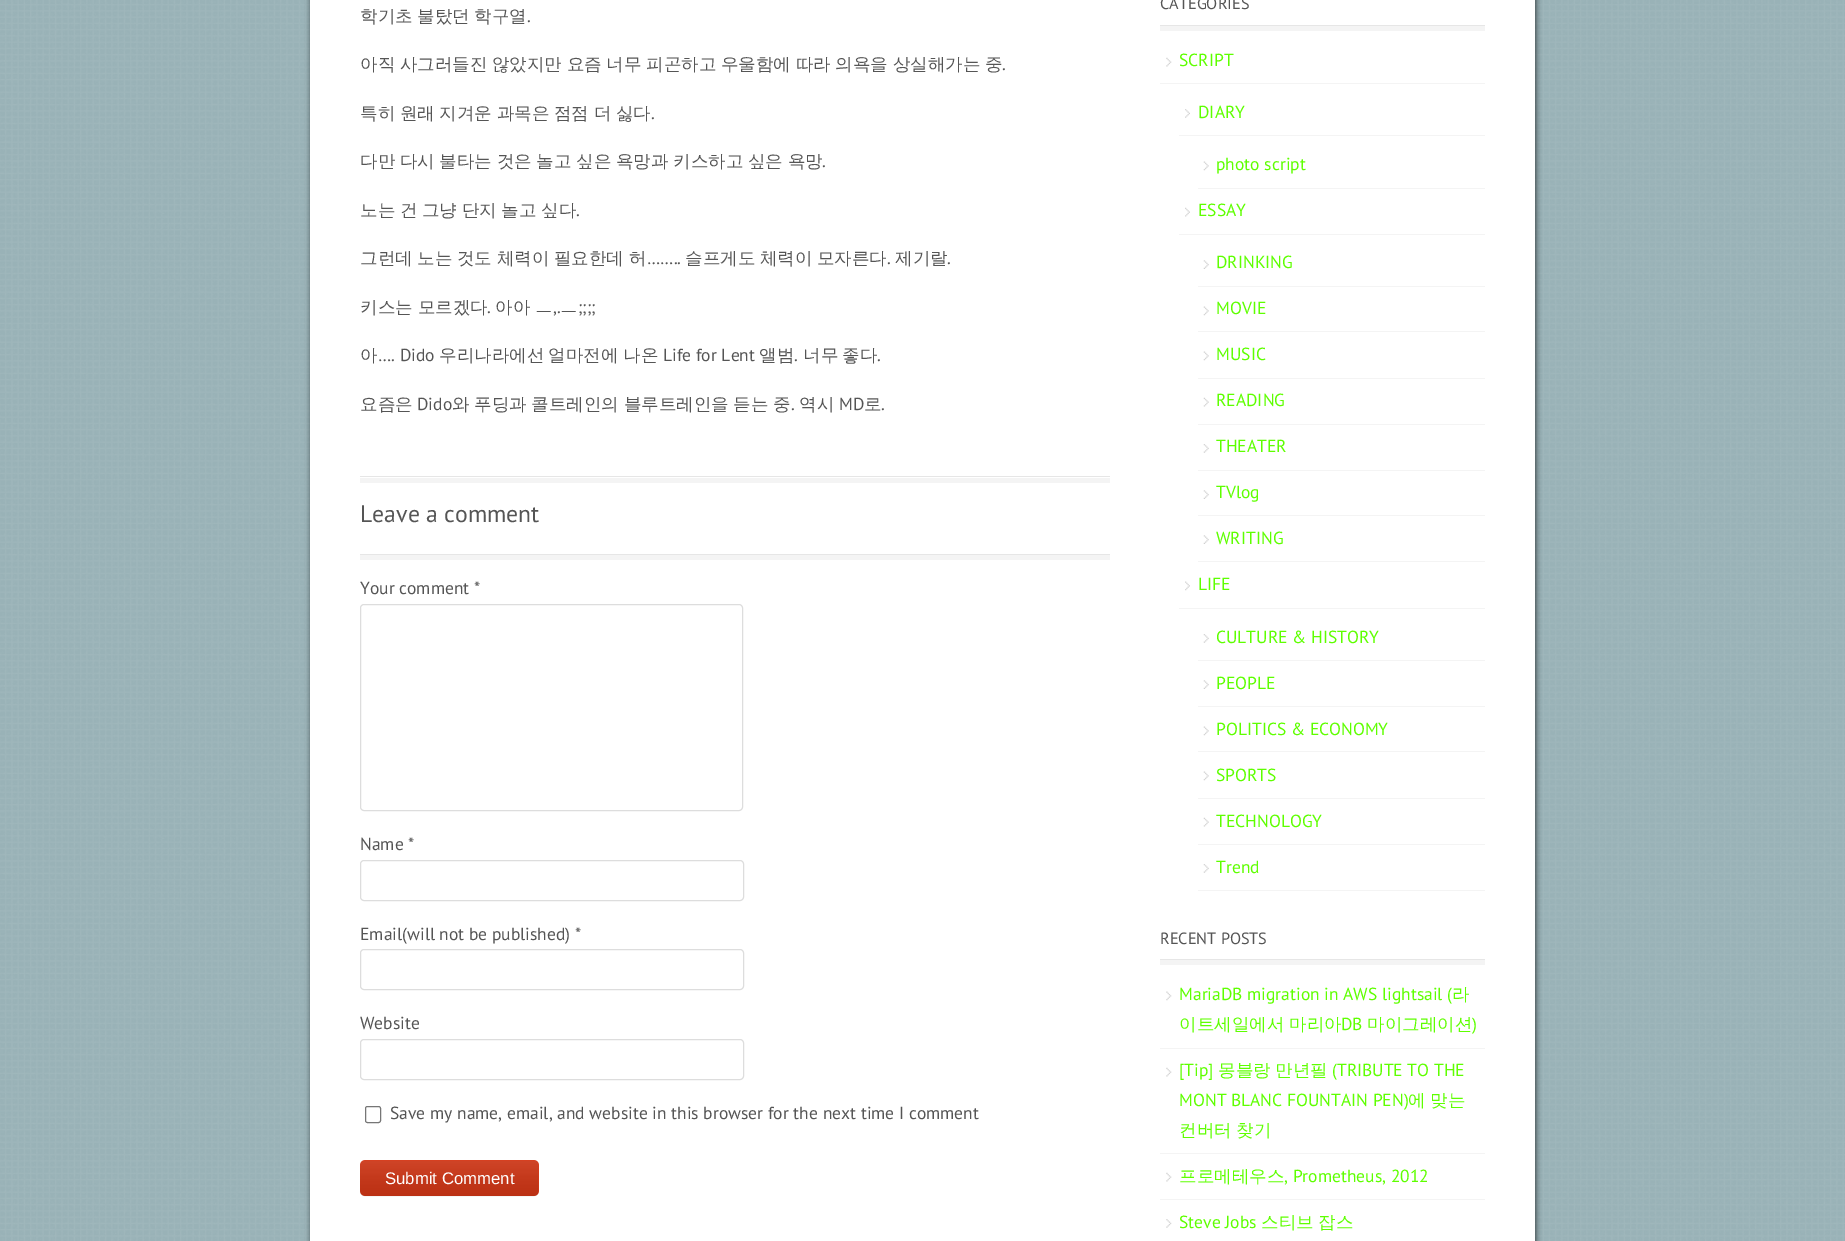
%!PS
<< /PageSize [1845 1241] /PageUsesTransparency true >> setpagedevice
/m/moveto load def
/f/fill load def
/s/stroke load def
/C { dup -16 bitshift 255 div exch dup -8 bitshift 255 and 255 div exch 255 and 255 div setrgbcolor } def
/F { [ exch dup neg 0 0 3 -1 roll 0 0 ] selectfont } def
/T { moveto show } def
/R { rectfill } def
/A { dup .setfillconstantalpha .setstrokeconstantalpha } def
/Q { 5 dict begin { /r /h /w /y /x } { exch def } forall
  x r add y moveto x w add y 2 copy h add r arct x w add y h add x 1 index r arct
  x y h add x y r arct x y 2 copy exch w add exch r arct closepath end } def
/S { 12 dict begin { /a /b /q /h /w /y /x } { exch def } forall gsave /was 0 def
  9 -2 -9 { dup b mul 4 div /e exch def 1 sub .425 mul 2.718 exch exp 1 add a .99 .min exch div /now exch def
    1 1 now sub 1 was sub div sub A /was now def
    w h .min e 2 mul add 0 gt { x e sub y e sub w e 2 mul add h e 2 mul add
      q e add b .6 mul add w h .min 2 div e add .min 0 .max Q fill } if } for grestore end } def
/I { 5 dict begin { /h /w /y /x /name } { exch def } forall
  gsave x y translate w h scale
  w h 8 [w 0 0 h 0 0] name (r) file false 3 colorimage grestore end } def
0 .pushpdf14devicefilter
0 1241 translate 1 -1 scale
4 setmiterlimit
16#99B2B7 C
0 0 1845 1241 R
(1.rgb) 0 0 1845 1241 I
16#000000 C
311 -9 1225 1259 0 3 .7 S
16#FFFFFF C
310 0 1225 1241 R
/WenQuanYiZenHei-Medium 17.5 F
16#555555 C
360 22 m -.5 0 32 (학기초 불탔던 학구열) widthshow
/PTSans-Regular 17.5 F
(.) 527 22 T
/WenQuanYiZenHei-Medium 17.5 F
360 70 m -.5 0 32 (아직 사그러들진 않았지만 요즘 너무 피곤하고 우울함에 따라 의욕을 상실해가는 중) widthshow
/PTSans-Regular 17.5 F
(.) 1002 70 T
/WenQuanYiZenHei-Medium 17.5 F
360 119 m -.5 0 32 (특히 원래 지겨운 과목은 점점 더 싫다) widthshow
/PTSans-Regular 17.5 F
(.) 651 119 T
/WenQuanYiZenHei-Medium 17.5 F
360 167 m -.5 0 32 (다만 다시 불타는 것은 놀고 싶은 욕망과 키스하고 싶은 욕망) widthshow
/PTSans-Regular 17.5 F
(.) 822 167 T
/WenQuanYiZenHei-Medium 17.5 F
360 216 m -.5 0 32 (노는 건 그냥 단지 놀고 싶다) widthshow
/PTSans-Regular 17.5 F
(.) 576 216 T
/WenQuanYiZenHei-Medium 17.5 F
360 264 m -.5 0 32 (그런데 노는 것도 체력이 필요한데 허) widthshow
/PTSans-Regular 17.5 F
(……..) 647 264 T
/WenQuanYiZenHei-Medium 17.5 F
685 264 m -.5 0 32 (슬프게도 체력이 모자른다) widthshow
/PTSans-Regular 17.5 F
(.) 887 264 T
/WenQuanYiZenHei-Medium 17.5 F
(제기랄) 895 264 T
/PTSans-Regular 17.5 F
(.) 947 264 T
/WenQuanYiZenHei-Medium 17.5 F
(키스는 모르겠다) 360 313 T
/PTSans-Regular 17.5 F
(.) 487 313 T
/WenQuanYiZenHei-Medium 17.5 F
(아아 ㅡ) 495 313 T
/PTSans-Regular 17.5 F
(,.) 553 313 T
/WenQuanYiZenHei-Medium 17.5 F
(ㅡ) 560 313 T
/PTSans-Regular 17.5 F
(;;;;) 578 313 T
/WenQuanYiZenHei-Medium 17.5 F
(아) 360 361 T
/PTSans-Regular 17.5 F
(…. Dido) 378 361 T
/WenQuanYiZenHei-Medium 17.5 F
(우리나라에선) 439 361 T
(얼마전에) 548 361 T
(나온) 623 361 T
/PTSans-Regular 17.5 F
(Life for Lent) 663 361 T
/WenQuanYiZenHei-Medium 17.5 F
(앨범) 759 361 T
/PTSans-Regular 17.5 F
(.) 794 361 T
/WenQuanYiZenHei-Medium 17.5 F
(너무) 803 361 T
(좋다) 842 361 T
/PTSans-Regular 17.5 F
(.) 877 361 T
/WenQuanYiZenHei-Medium 17.5 F
(요즘은) 360 410 T
/PTSans-Regular 17.5 F
(Dido) 417 410 T
/WenQuanYiZenHei-Medium 17.5 F
452 410 m -.5 0 32 (와 푸딩과 콜트레인의 블루트레인을 듣는 중) widthshow
/PTSans-Regular 17.5 F
(.) 791 410 T
/WenQuanYiZenHei-Medium 17.5 F
(역시) 799 410 T
/PTSans-Regular 17.5 F
(MD) 839 410 T
/WenQuanYiZenHei-Medium 17.5 F
(로) 864 410 T
/PTSans-Regular 17.5 F
(.) 881 410 T
16#F4F4F4 C
360 478 750 5 R
16#E6E6E6 C
360 476 750 1 R
/PTSans-Regular 23.75 F
16#555555 C
(Leave a comment) 360 522 T
16#F4F4F4 C
360 555 750 5 R
16#E6E6E6 C
360 554 750 1 R
/PTSans-Regular 17.5 F
16#555555 C
(Your comment *) 360 594 T
16#DDDDDD C
360.5 604.5 382 206 3.5 Q s
16#555555 C
(Name *) 360 850 T
16#DDDDDD C
360.5 860.5 383 40 3.5 Q s
16#555555 C
(Email\(will not be published\) *) 360 940 T
16#DDDDDD C
360.5 949.5 383 40 3.5 Q s
16#555555 C
(Website) 360 1029 T
16#DDDDDD C
360.5 1039.5 383 40 3.5 Q s
16#767676 C
365.5 1106.5 15 16 2 Q s
16#555555 C
(Save my name, email, and website in this browser for the next time I comment) 390 1119 T
16#DE3917 C
360 1160 179 36 5 Q f
(2.rgb) 360 1160 179 37 I
/LiberationSans-Regular 16.75 F
16#FFFFFF C
(Submit Comment) 385 1184 T
16#F4F4F4 C
1160 26 325 5 R
16#E6E6E6 C
1160 25 325 1 R
/PTSans-Regular 16.25 F
16#555555 C
(CATEGORIES) 1160 9 T
(3.rgb) 1166 57 6 10 I
16#F4F4F4 C
1160 83 325 1 R
/PTSans-Regular 17.5 F
16#5EFF00 C
(SCRIPT) 1179 66 T
(4.rgb) 1185 109 5 9 I
16#F4F4F4 C
1179 135 306 1 R
16#5EFF00 C
(DIARY) 1198 118 T
(5.rgb) 1203 161 6 10 I
16#F4F4F4 C
1198 188 287 1 R
16#5EFF00 C
(photo script) 1216 170 T
(6.rgb) 1185 207 5 10 I
16#F4F4F4 C
1179 234 306 1 R
16#5EFF00 C
(ESSAY) 1198 216 T
(7.rgb) 1203 260 6 9 I
16#F4F4F4 C
1198 286 287 1 R
16#5EFF00 C
(DRINKING) 1216 268 T
(5.rgb) 1203 306 6 10 I
16#F4F4F4 C
1198 331 287 1 R
16#5EFF00 C
(MOVIE) 1216 314 T
(5.rgb) 1203 351 6 10 I
16#F4F4F4 C
1198 378 287 1 R
16#5EFF00 C
(MUSIC) 1216 360 T
(8.rgb) 1203 397 6 10 I
16#F4F4F4 C
1198 424 287 1 R
16#5EFF00 C
(READING) 1216 406 T
(9.rgb) 1203 444 6 9 I
16#F4F4F4 C
1198 470 287 1 R
16#5EFF00 C
(THEATER) 1216 452 T
(7.rgb) 1203 490 6 9 I
16#F4F4F4 C
1198 515 287 1 R
16#5EFF00 C
(TVlog) 1216 498 T
(7.rgb) 1203 535 6 9 I
16#F4F4F4 C
1198 561 287 1 R
16#5EFF00 C
(WRITING) 1216 544 T
(10.rgb) 1185 581 5 10 I
16#F4F4F4 C
1179 608 306 1 R
16#5EFF00 C
(LIFE) 1198 590 T
(9.rgb) 1203 634 6 9 I
16#F4F4F4 C
1198 660 287 1 R
16#5EFF00 C
(CULTURE & HISTORY) 1216 643 T
(7.rgb) 1203 680 6 9 I
16#F4F4F4 C
1198 706 287 1 R
16#5EFF00 C
(PEOPLE) 1216 689 T
(5.rgb) 1203 726 6 10 I
16#F4F4F4 C
1198 751 287 1 R
16#5EFF00 C
(POLITICS & ECONOMY) 1216 735 T
(5.rgb) 1203 771 6 10 I
16#F4F4F4 C
1198 798 287 1 R
16#5EFF00 C
(SPORTS) 1216 781 T
(8.rgb) 1203 817 6 10 I
16#F4F4F4 C
1198 844 287 1 R
16#5EFF00 C
(TECHNOLOGY) 1216 827 T
(9.rgb) 1203 864 6 9 I
16#F4F4F4 C
1198 890 287 1 R
16#5EFF00 C
(Trend) 1216 873 T
16#F4F4F4 C
1160 960 325 5 R
16#E6E6E6 C
1160 959 325 1 R
/PTSans-Regular 16.25 F
16#555555 C
(RECENT POSTS) 1160 944 T
(11.rgb) 1166 991 6 10 I
16#F4F4F4 C
1160 1048 325 1 R
/PTSans-Regular 17.5 F
16#5EFF00 C
(MariaDB migration in AWS lightsail \() 1179 1000 T
/WenQuanYiZenHei-Medium 17.5 F
(라) 1452 1000 T
(이트세일에서 마리아) 1179 1030 T
/PTSans-Regular 17.5 F
(DB) 1341 1030 T
/WenQuanYiZenHei-Medium 17.5 F
(마이그레이션) 1367 1030 T
/PTSans-Regular 17.5 F
(\)) 1472 1030 T
(3.rgb) 1166 1067 6 10 I
16#F4F4F4 C
1160 1153 325 1 R
16#5EFF00 C
([Tip]) 1179 1076 T
/WenQuanYiZenHei-Medium 17.5 F
(몽블랑) 1218 1076 T
(만년필) 1275 1076 T
/PTSans-Regular 17.5 F
(\(TRIBUTE TO THE) 1332 1076 T
(MONT BLANC FOUNTAIN PEN\)) 1179 1106 T
/WenQuanYiZenHei-Medium 17.5 F
(에) 1408 1106 T
(맞는) 1430 1106 T
1179 1136 m -.5 0 32 (컨버터 찾기) widthshow
(3.rgb) 1166 1172 6 10 I
16#F4F4F4 C
1160 1199 325 1 R
16#5EFF00 C
(프로메테우스) 1179 1182 T
/PTSans-Regular 17.5 F
(, Prometheus, 2012) 1284 1182 T
(12.rgb) 1166 1219 6 9 I
(Steve Jobs) 1179 1228 T
/WenQuanYiZenHei-Medium 17.5 F
(스티브) 1261 1228 T
(잡스) 1318 1228 T
.poppdf14devicefilter showpage
